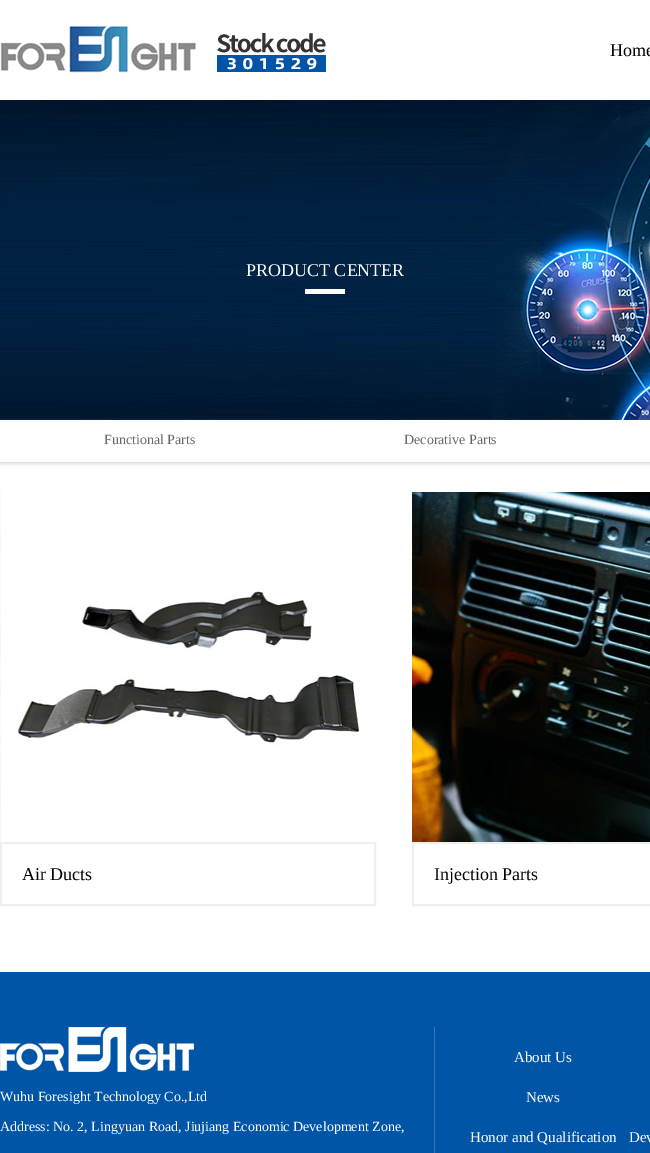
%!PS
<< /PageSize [650 1153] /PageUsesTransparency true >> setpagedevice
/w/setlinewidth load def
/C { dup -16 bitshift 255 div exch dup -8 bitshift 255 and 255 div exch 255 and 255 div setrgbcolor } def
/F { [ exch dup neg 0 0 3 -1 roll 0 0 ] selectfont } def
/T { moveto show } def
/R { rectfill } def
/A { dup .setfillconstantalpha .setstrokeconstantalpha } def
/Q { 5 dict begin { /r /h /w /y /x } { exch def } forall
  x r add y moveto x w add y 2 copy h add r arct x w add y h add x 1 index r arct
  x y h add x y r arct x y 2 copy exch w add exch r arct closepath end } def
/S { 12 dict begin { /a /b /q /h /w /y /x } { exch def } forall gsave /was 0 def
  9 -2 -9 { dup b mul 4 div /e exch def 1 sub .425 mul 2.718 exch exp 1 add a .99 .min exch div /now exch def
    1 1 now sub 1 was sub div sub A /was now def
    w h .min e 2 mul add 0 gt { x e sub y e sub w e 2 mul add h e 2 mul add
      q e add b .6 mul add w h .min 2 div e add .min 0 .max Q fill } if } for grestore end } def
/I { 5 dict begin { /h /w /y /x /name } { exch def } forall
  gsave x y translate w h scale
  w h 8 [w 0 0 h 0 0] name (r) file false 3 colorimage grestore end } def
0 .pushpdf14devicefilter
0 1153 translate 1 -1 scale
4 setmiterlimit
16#FFFFFF C
0 0 650 1153 R
(1.rgb) 0 25 326 48 I
/LiberationSerif-Regular 18 F
16#000000 C
(Home) 610 56 T
(2.rgb) 0 100 650 320 I
16#FFFFFF C
305 289 40 5 R
(PRODUCT CENTER) 246 276 T
16#DDDDDD C
0 422 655 42 0 1.5 1 S
16#FFFFFF C
0 420 650 42 R
/LiberationSerif-Regular 14 F
16#666666 C
(Functional Parts) 104 444 T
(Decorative Parts) 404 444 T
(3.rgb) 0 492 361 350 I
16#EFEFEF C
2 w
1 843 374 62 rectstroke
/LiberationSerif-Regular 18 F
16#000000 C
(Air Ducts) 22 880 T
(4.rgb) 412 492 238 350 I
16#EFEFEF C
413 843 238 62 rectstroke
16#000000 C
(Injection Parts) 434 880 T
16#0055A6 C
0 972 650 181 R
(5.rgb) 0 1027 194 45 I
/LiberationSerif-Regular 14 F
16#FFFFFF C
(Wuhu Foresight Technology Co.,Ltd) 0 1101 T
(Address: No. 2, Lingyuan Road, Jiujiang Economic Development Zone,) 0 1131 T
16#3377B8 C
434 1027 1 126 R
/LiberationSerif-Regular 15 F
16#FFFFFF C
(About Us) 514 1062 T
(News) 526 1102 T
(Honor and Qualification) 470 1142 T
(Dev) 629 1142 T
.poppdf14devicefilter showpage
